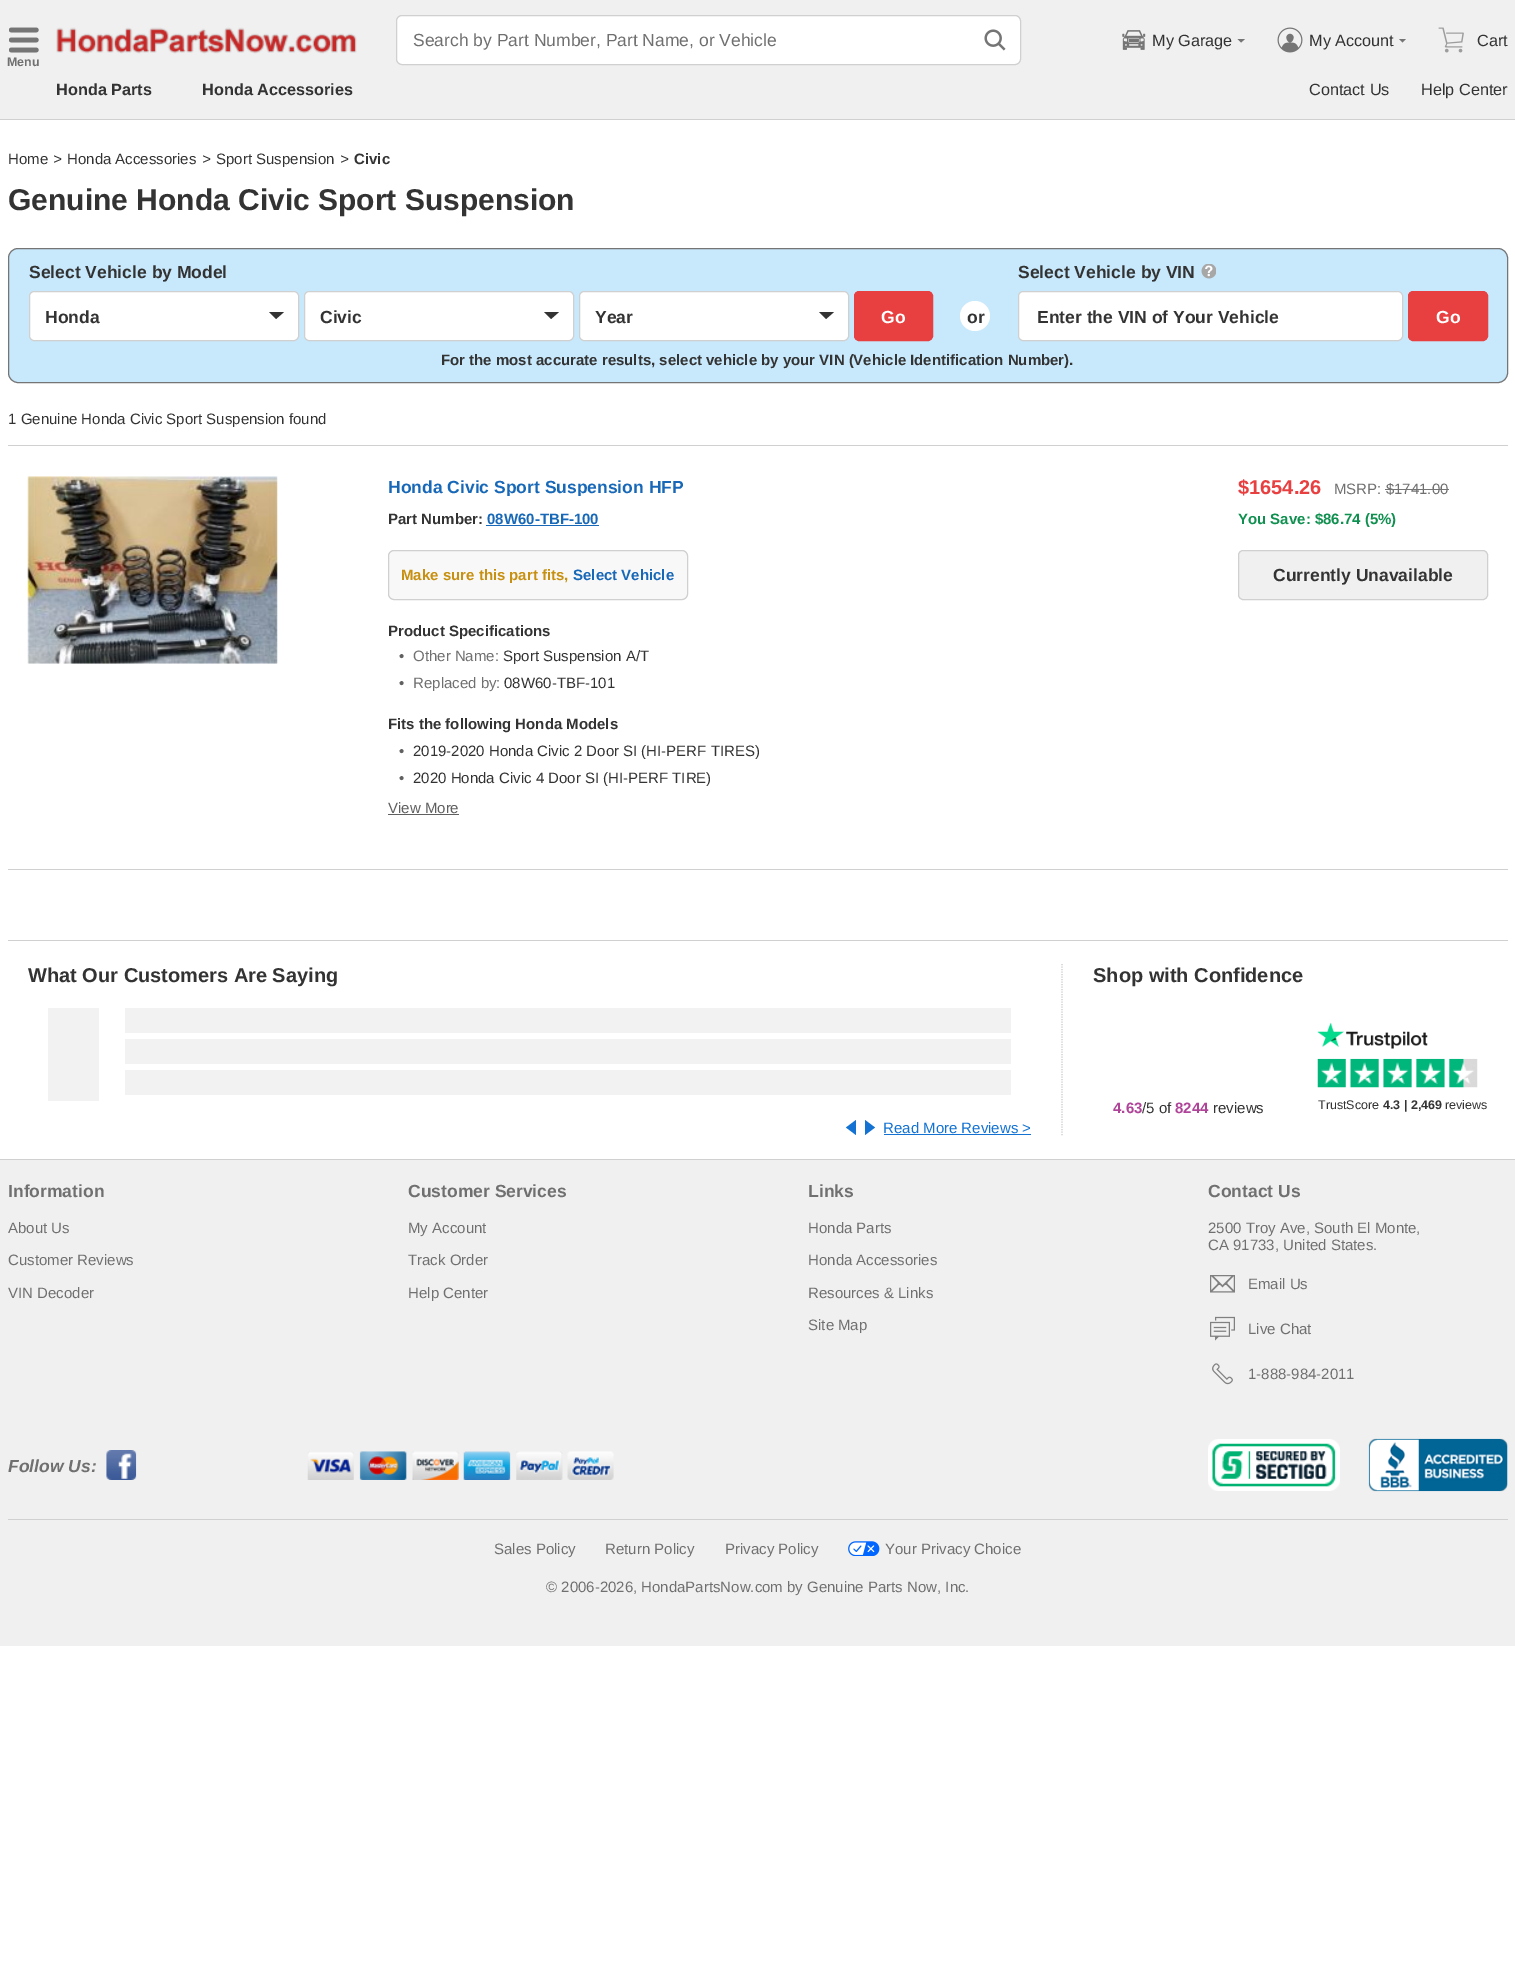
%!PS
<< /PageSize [1515 1978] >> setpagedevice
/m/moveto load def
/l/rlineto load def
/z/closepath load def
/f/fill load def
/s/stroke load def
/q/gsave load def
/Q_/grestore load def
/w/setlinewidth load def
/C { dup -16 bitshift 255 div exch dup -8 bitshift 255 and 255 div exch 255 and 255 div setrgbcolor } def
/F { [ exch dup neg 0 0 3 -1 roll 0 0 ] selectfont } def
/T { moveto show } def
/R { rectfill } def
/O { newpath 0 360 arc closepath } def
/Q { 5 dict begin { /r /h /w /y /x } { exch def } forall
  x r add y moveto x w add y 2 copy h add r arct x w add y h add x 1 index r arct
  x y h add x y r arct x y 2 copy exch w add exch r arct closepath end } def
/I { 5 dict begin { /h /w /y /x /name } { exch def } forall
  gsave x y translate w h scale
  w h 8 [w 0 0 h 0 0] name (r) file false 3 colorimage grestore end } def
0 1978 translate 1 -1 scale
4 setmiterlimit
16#FFFFFF C
0 0 1515 1978 R
16#F0F0F0 C
0 0 1515 119 R
16#D0D0D0 C
0 119 1515 1 R
16#FFFFFF C
396.5 15.5 624 49 5.5 Q q f Q_
16#D0D0D0 C
s
/LiberationSans-Regular 17.5 F
16#707070 C
(Search by Part Number, Part Name, or Vehicle) 413 46 T
(1.rgb) 984 29 22 22 I
(2.rgb) 1122 30 24 20 I
/LiberationSans-Regular 16.25 F
16#333333 C
(My Garage) 1152 46 T
16#757575 C
1237.5 39 m 7.5 0 l -4 3.5 l z f
(3.rgb) 1277 27 26 26 I
16#333333 C
(My Account) 1309 46 T
16#757575 C
1399 39 m 7 0 l -3.5 3.5 l z f
(4.rgb) 1438 27 26 26 I
16#333333 C
(Cart) 1477 46 T
(5.rgb) 56 27 301 27 I
(6.rgb) 9 27 30 26 I
/LiberationSans-Bold 12.5 F
16#707070 C
(Menu) 7 66 T
/LiberationSans-Bold 16.25 F
16#333333 C
(Honda Parts) 56 95 T
(Honda Accessories) 202 95 T
/LiberationSans-Regular 16.25 F
(Contact Us) 1309 95 T
(Help Center) 1421 95 T
/LiberationSans-Regular 15 F
(Home) 8 164 T
/LiberationSans-Italic 15 F
(>) 53 164 T
/LiberationSans-Regular 15 F
(Honda Accessories) 67 164 T
/LiberationSans-Italic 15 F
(>) 202 164 T
/LiberationSans-Regular 15 F
(Sport Suspension) 216 164 T
/LiberationSans-Italic 15 F
(>) 340 164 T
/LiberationSans-Bold 15 F
(Civic) 354 164 T
/LiberationSans-Bold 30 F
(Genuine Honda Civic Sport Suspension) 8 210 T
16#C8E8FC C
8.5 248.5 1499 134 9.5 Q q f Q_
16#757575 C
s
/LiberationSans-Bold 17.5 F
16#333333 C
(Select Vehicle by Model) 29 278 T
16#FFFFFF C
29.5 291.5 269 49 4.5 Q q f Q_
16#D0D0D0 C
s
16#333333 C
(Honda) 45 323 T
269 312 m 15 0 l -8 7 l z f
16#FFFFFF C
304.5 291.5 269 49 4.5 Q q f Q_
16#D0D0D0 C
s
16#333333 C
(Civic) 320 323 T
544 312 m 15 0 l -8 7 l z f
16#FFFFFF C
579.5 291.5 269 49 4.5 Q q f Q_
16#D0D0D0 C
s
16#333333 C
(Year) 595 323 T
819 312 m 15 0 l -8 7 l z f
16#E84040 C
854.5 291.5 78 49 4.5 Q q f Q_
s
16#FFFFFF C
(Go) 881 323 T
16#333333 C
(Select Vehicle by VIN) 1018 278 T
(7.rgb) 1201 264 15 15 I
16#FFFFFF C
1018.5 291.5 384 49 4.5 Q q f Q_
16#D0D0D0 C
s
16#333333 C
(Enter the VIN of Your Vehicle) 1037 323 T
16#E84040 C
1408.5 291.5 79 49 4.5 Q q f Q_
s
16#FFFFFF C
(Go) 1436 323 T
/LiberationSans-Bold 15 F
16#333333 C
(For the most accurate results, select vehicle by your VIN \(Vehicle Identification Number\).) 441 365 T
16#FFFFFF C
975 316 15 O f
/LiberationSans-Bold 17.5 F
16#333333 C
(or) 967 323 T
/LiberationSans-Regular 15 F
(1 Genuine Honda Civic Sport Suspension found) 8 424 T
16#D0D0D0 C
8 869 1500 1 R
8 445 1500 1 R
(8.rgb) 27 476 251 188 I
q
388 476 295 20 rectclip
/LiberationSans-Bold 17.5 F
16#1868B8 C
(Honda Civic Sport Suspension HFP) 388 493 T
Q_
/LiberationSans-Bold 20 F
16#E84040 C
($1654.26) 1238 494 T
/LiberationSans-Regular 15 F
16#707070 C
(MSRP: $1741.00) 1334 494 T
16#757575 C
1385 489 64 1 R
/LiberationSans-Bold 15 F
16#109050 C
(You Save: $86.74 \(5%\)) 1238 524 T
16#F0F0F0 C
1238.5 550.5 249 49 4.5 Q q f Q_
16#D0D0D0 C
s
/LiberationSans-Bold 17.5 F
16#333333 C
(Currently Unavailable) 1273 581 T
/LiberationSans-Bold 15 F
(Part Number:) 388 524 T
16#1868B8 C
(08W60-TBF-100) 487 524 T
486 525 113 1 R
16#F8F8F8 C
388.5 550.5 299 49 5.5 Q q f Q_
16#D0D0D0 C
s
16#C89010 C
(Make sure this part fits,) 401 580 T
16#1868B8 C
(Select Vehicle) 573 580 T
16#333333 C
(Product Specifications) 388 636 T
/LiberationSans-Regular 15 F
16#606060 C
(•) 399 661 T
16#707070 C
(Other Name:) 413 661 T
16#333333 C
(Sport Suspension A/T) 503 661 T
16#606060 C
(•) 399 688 T
16#707070 C
(Replaced by:) 413 688 T
16#333333 C
(08W60-TBF-101) 504 688 T
/LiberationSans-Bold 15 F
(Fits the following Honda Models) 388 729 T
/LiberationSans-Regular 15 F
16#606060 C
(•) 399 756 T
16#333333 C
(2019-2020 Honda Civic 2 Door SI \(HI-PERF TIRES\)) 413 756 T
16#606060 C
(•) 399 783 T
16#333333 C
(2020 Honda Civic 4 Door SI \(HI-PERF TIRE\)) 413 783 T
16#606060 C
(View More) 388 813 T
388 814 71 1 R
16#D0D0D0 C
8 940 1500 1 R
1.2 w
[1.25 1.25] 0 setdash
1062 964 m 0 172 l s
/LiberationSans-Bold 20 F
16#333333 C
(What Our Customers Are Saying) 28 982 T
q 48 1008 m 51 0 l 0 93 l -51 0 l z clip newpath
<< /ShadingType 2 /ColorSpace /DeviceRGB /Coords [48 1054 253 1054] /Extend [true true] /Function << /FunctionType 3 /Domain [0 1] /Functions [<< /FunctionType 2 /Domain [0 1] /C0 [.949 .949 .949] /C1 [.949 .949 .949] /N 1 >> << /FunctionType 2 /Domain [0 1] /C0 [.949 .949 .949] /C1 [.902 .902 .902] /N 1 >> << /FunctionType 2 /Domain [0 1] /C0 [.902 .902 .902] /C1 [.949 .949 .949] /N 1 >> << /FunctionType 2 /Domain [0 1] /C0 [.949 .949 .949] /C1 [.949 .949 .949] /N 1 >>] /Bounds [.25 .37 .63] /Encode [0 1 0 1 0 1 0 1] >> >> shfill Q_
q 125 1008 m 886 0 l 0 25 l -886 0 l z clip newpath
<< /ShadingType 2 /ColorSpace /DeviceRGB /Coords [125 1020 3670 1020] /Extend [true true] /Function << /FunctionType 3 /Domain [0 1] /Functions [<< /FunctionType 2 /Domain [0 1] /C0 [.949 .949 .949] /C1 [.949 .949 .949] /N 1 >> << /FunctionType 2 /Domain [0 1] /C0 [.949 .949 .949] /C1 [.902 .902 .902] /N 1 >> << /FunctionType 2 /Domain [0 1] /C0 [.902 .902 .902] /C1 [.949 .949 .949] /N 1 >> << /FunctionType 2 /Domain [0 1] /C0 [.949 .949 .949] /C1 [.949 .949 .949] /N 1 >>] /Bounds [.25 .37 .63] /Encode [0 1 0 1 0 1 0 1] >> >> shfill Q_
q 125 1039 m 886 0 l 0 25 l -886 0 l z clip newpath
<< /ShadingType 2 /ColorSpace /DeviceRGB /Coords [125 1051 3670 1051] /Extend [true true] /Function << /FunctionType 3 /Domain [0 1] /Functions [<< /FunctionType 2 /Domain [0 1] /C0 [.949 .949 .949] /C1 [.949 .949 .949] /N 1 >> << /FunctionType 2 /Domain [0 1] /C0 [.949 .949 .949] /C1 [.902 .902 .902] /N 1 >> << /FunctionType 2 /Domain [0 1] /C0 [.902 .902 .902] /C1 [.949 .949 .949] /N 1 >> << /FunctionType 2 /Domain [0 1] /C0 [.949 .949 .949] /C1 [.949 .949 .949] /N 1 >>] /Bounds [.25 .37 .63] /Encode [0 1 0 1 0 1 0 1] >> >> shfill Q_
q 125 1070 m 886 0 l 0 25 l -886 0 l z clip newpath
<< /ShadingType 2 /ColorSpace /DeviceRGB /Coords [125 1083 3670 1082] /Extend [true true] /Function << /FunctionType 3 /Domain [0 1] /Functions [<< /FunctionType 2 /Domain [0 1] /C0 [.949 .949 .949] /C1 [.949 .949 .949] /N 1 >> << /FunctionType 2 /Domain [0 1] /C0 [.949 .949 .949] /C1 [.902 .902 .902] /N 1 >> << /FunctionType 2 /Domain [0 1] /C0 [.902 .902 .902] /C1 [.949 .949 .949] /N 1 >> << /FunctionType 2 /Domain [0 1] /C0 [.949 .949 .949] /C1 [.949 .949 .949] /N 1 >>] /Bounds [.25 .37 .63] /Encode [0 1 0 1 0 1 0 1] >> >> shfill Q_
16#1372D2 C
856 1120 m 0 15 l -10 -7.5 l z 865 1135 m 0 -15 l 10 7.5 l z f
/LiberationSans-Regular 15 F
(Read More Reviews >) 883 1133 T
884 1134 147 1 R
/LiberationSans-Bold 20 F
16#333333 C
(Shop with Confidence) 1093 982 T
/LiberationSans-Bold 15 F
16#AF4499 C
(4.63) 1113 1113 T
/LiberationSans-Regular 15 F
16#333333 C
(/5 of) 1142 1113 T
/LiberationSans-Bold 15 F
16#AF4499 C
(8244) 1175 1113 T
/LiberationSans-Regular 15 F
16#333333 C
(reviews) 1213 1113 T
(9.rgb) 1317 1022 111 27 I
(10.rgb) 1317 1058 161 30 I
/LiberationSans-Regular 12.5 F
(TrustScore) 1318 1109 T
/LiberationSans-Bold 12.5 F
(4.3 | 2,469) 1383 1109 T
/LiberationSans-Regular 12.5 F
(reviews) 1445 1109 T
16#F0F0F0 C
0 1160 1515 486 R
16#D0D0D0 C
0 1159 1515 1 R
/LiberationSans-Bold 17.5 F
16#707070 C
(Information) 8 1197 T
/LiberationSans-Regular 15 F
(About Us) 8 1233 T
(Customer Reviews) 8 1265 T
(VIN Decoder) 8 1298 T
/LiberationSans-Bold 17.5 F
(Customer Services) 408 1197 T
/LiberationSans-Regular 15 F
(My Account) 408 1233 T
(Track Order) 408 1265 T
(Help Center) 408 1298 T
/LiberationSans-Bold 17.5 F
(Links) 808 1197 T
/LiberationSans-Regular 15 F
(Honda Parts) 808 1233 T
(Honda Accessories) 808 1265 T
(Resources & Links) 808 1298 T
(Site Map) 808 1330 T
/LiberationSans-Bold 17.5 F
(Contact Us) 1208 1197 T
/LiberationSans-Regular 15 F
(2500 Troy Ave, South El Monte,) 1208 1233 T
(CA 91733, United States.) 1208 1250 T
(11.rgb) 1210 1275 25 18 I
(Email Us) 1248 1289 T
(12.rgb) 1210 1316 25 25 I
(Live Chat) 1248 1334 T
(13.rgb) 1212 1363 21 22 I
(1-888-984-2011) 1248 1379 T
/LiberationSans-BoldItalic 17.5 F
(Follow Us:) 8 1472 T
(14.rgb) 106 1450 31 30 I
(15.rgb) 307 1451 307 29 I
(16.rgb) 1208 1439 132 52 I
(17.rgb) 1368 1438 140 54 I
16#D0D0D0 C
8 1519 1500 1 R
/LiberationSans-Regular 15 F
16#707070 C
(Sales Policy) 494 1554 T
(Return Policy) 605 1554 T
(Privacy Policy) 725 1554 T
(18.rgb) 848 1541 32 15 I
(Your Privacy Choice) 885 1554 T
(© 2006-2026, HondaPartsNow.com by Genuine Parts Now, Inc.) 546 1592 T
showpage
